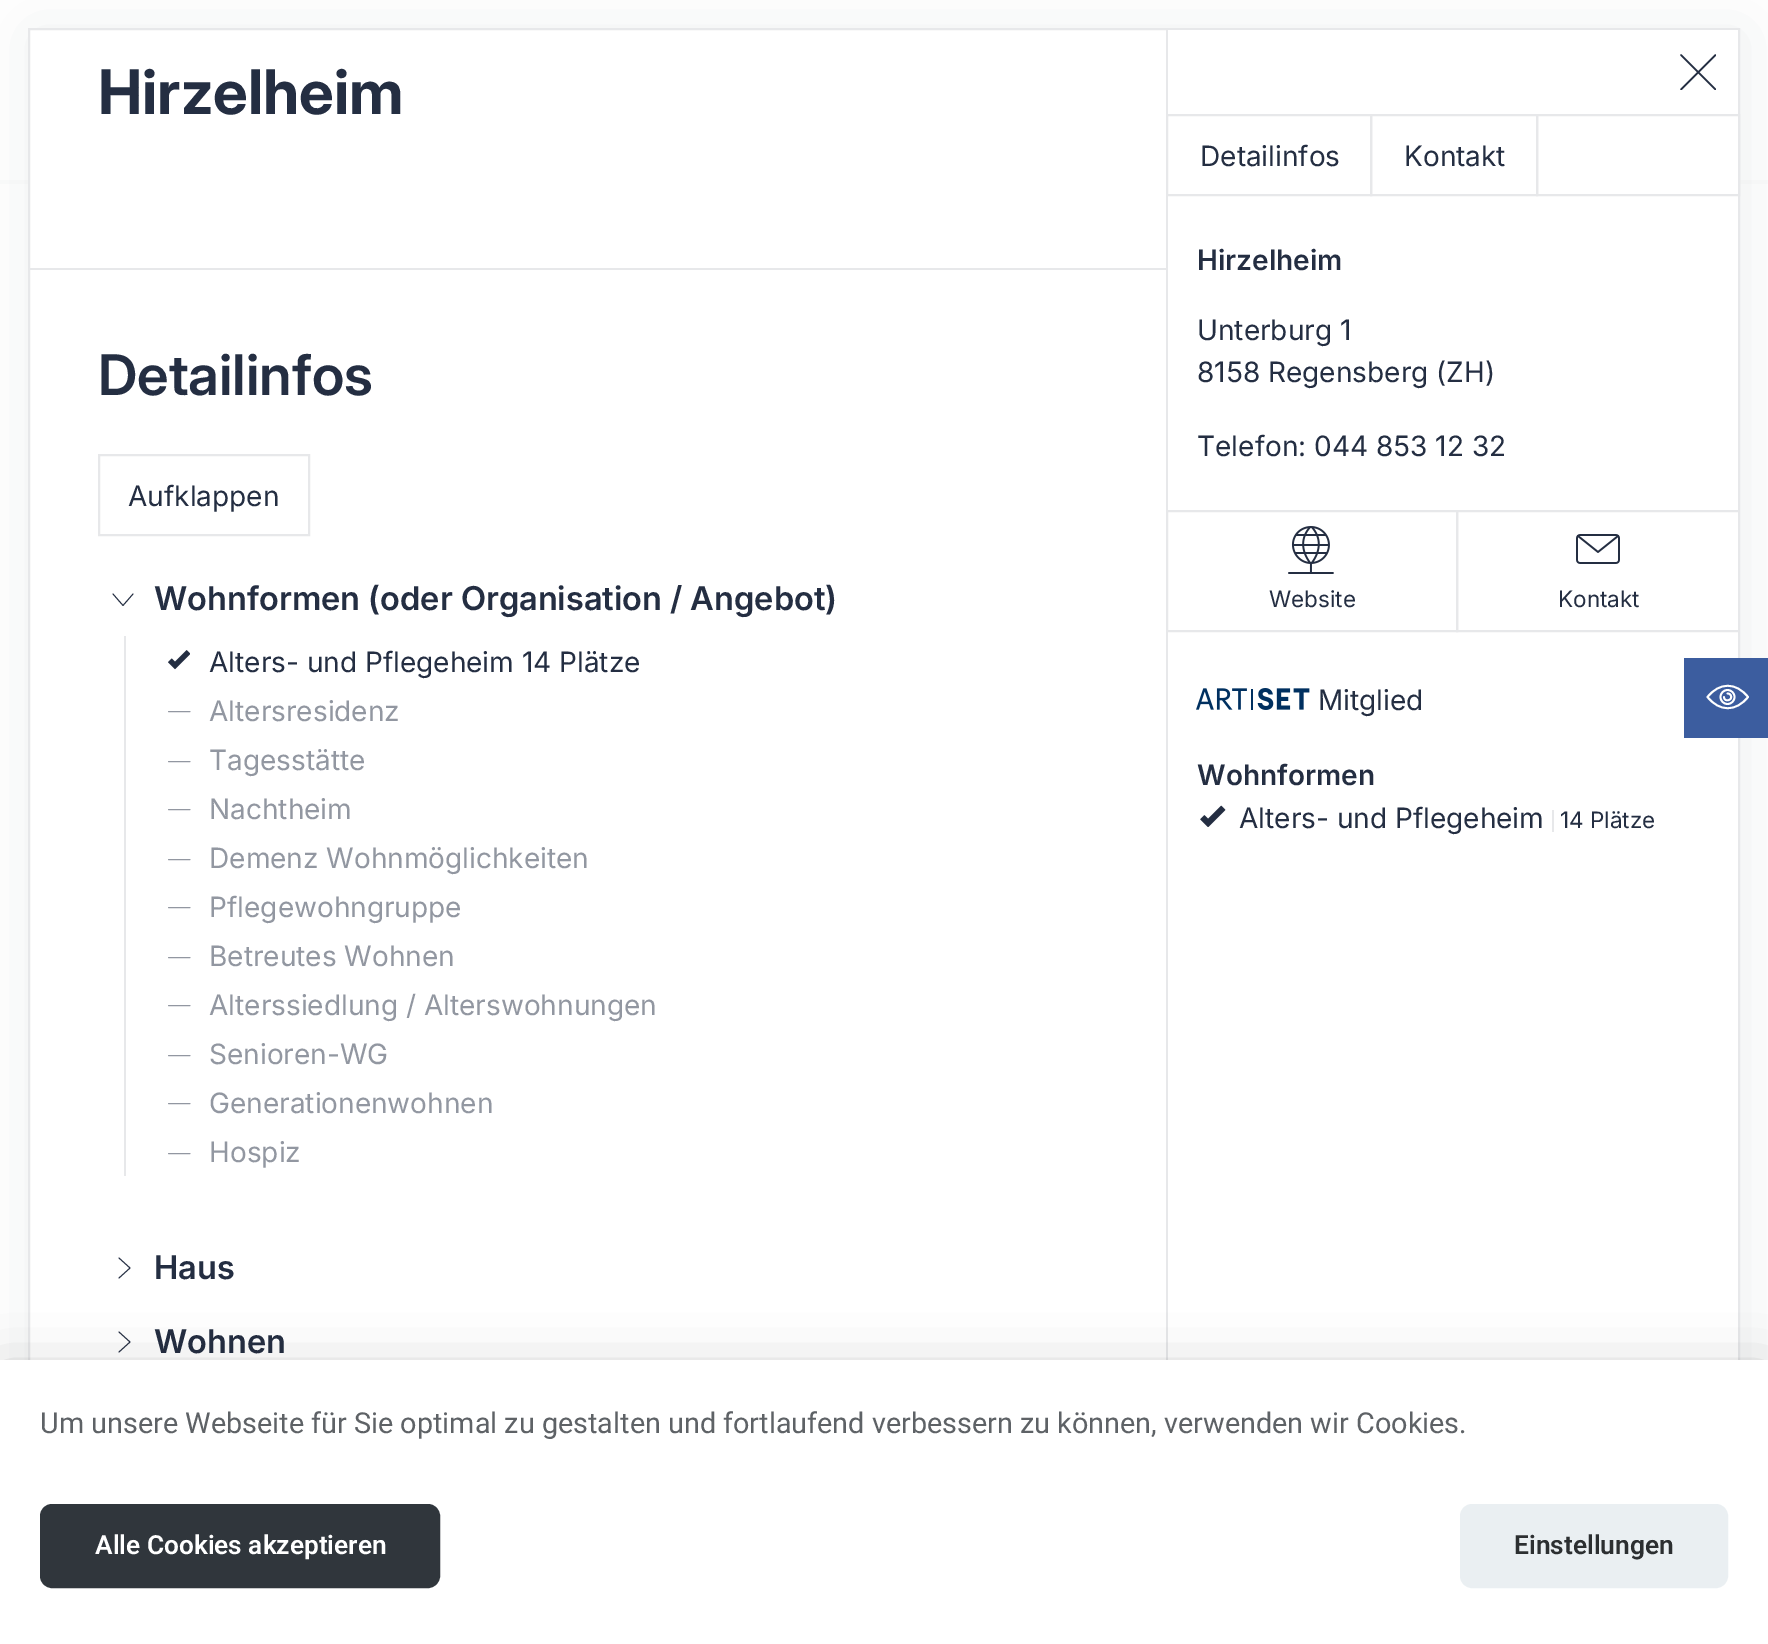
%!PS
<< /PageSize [1768 1644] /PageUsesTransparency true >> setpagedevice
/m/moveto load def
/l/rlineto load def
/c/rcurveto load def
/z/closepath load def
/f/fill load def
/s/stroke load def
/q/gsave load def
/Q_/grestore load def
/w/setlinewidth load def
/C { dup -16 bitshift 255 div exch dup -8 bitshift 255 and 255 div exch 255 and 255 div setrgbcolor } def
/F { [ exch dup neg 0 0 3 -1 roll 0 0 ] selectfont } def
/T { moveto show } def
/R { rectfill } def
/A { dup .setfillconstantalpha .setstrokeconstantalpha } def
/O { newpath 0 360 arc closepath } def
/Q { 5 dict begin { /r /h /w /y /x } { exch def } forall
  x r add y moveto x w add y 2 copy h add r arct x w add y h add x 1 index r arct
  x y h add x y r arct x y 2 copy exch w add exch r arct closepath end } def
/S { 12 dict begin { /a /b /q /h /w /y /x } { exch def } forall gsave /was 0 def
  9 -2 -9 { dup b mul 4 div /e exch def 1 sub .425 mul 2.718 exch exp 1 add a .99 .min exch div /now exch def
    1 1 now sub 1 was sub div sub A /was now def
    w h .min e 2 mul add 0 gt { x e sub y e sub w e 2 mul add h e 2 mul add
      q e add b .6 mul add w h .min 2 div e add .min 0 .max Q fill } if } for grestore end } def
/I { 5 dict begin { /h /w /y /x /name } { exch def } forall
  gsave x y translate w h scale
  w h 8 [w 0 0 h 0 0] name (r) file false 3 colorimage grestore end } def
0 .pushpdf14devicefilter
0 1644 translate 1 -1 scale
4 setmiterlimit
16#FFFFFF C
0 0 1768 1644 R
16#FBFCFC C
0 180 1768 4 R
16#242E42 C
32 32 1712 1588 0 30 .07 S
16#FFFFFF C
30 30 1136 1330 R
16#E7E8EA C
2 w
29 29 1710 1586 rectstroke
/Inter-Bold 61.5 F
16#242E42 C
(Hirzelheim) 98 114 T
16#E7E8EA C
28 268 1140 2 R
/Inter-SemiBold 56 F
16#242E42 C
(Detailinfos) 98 395 T
16#E7E8EA C
99 455 210 80 rectstroke
/Inter-Regular 28 F
16#242E42 C
(Aufklappen) 128 506 T
.9 w
1 setlinecap
1 setlinejoin
113 594 m 10 11.5 l 10 -11.5 l s
/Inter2-SemiBold 32.75 F
(Wohnformen \(oder Organisation / Angebot\)) 154 610 T
16#E7E8EA C
124 636 2 540 R
(1.rgb) 168 650 22 20 I
/Inter-Regular 28 F
16#242E42 C
(Alters- und Pflegeheim 14 Plätze) 209 672 T
16#9297A1 C
190 711.5 m -21.5 0 l 190 761.5 m -21.5 0 l s
(Altersresidenz) 209 721 T
(Tagesstätte) 209 770 T
190 809.5 m -21.5 0 l 190 859.5 m -21.5 0 l s
(Nachtheim) 209 819 T
(Demenz Wohnmöglichkeiten) 209 868 T
190 907.5 m -21.5 0 l 190 957.5 m -21.5 0 l s
(Pflegewohngruppe) 209 917 T
(Betreutes Wohnen) 209 966 T
190 1005.5 m -21.5 0 l 190 1055.5 m -21.5 0 l s
(Alterssiedlung / Alterswohnungen) 209 1015 T
(Senioren-WG) 209 1064 T
190 1103.5 m -21.5 0 l 190 1153.5 m -21.5 0 l s
(Generationenwohnen) 209 1113 T
(Hospiz) 209 1162 T
16#242E42 C
119 1278 m 11 -10 l -11 -10 l s
/Inter2-SemiBold 32.75 F
(Haus) 154 1279 T
119 1352 m 11 -10 l -11 -10 l s
(Wohnen) 154 1353 T
16#FFFFFF C
1168 30 570 1330 R
16#E7E8EA C
1166 30 2 1330 R
q
1680 54 36 36 rectclip
16#242E42 C
1.5 w
1681 55 m 34.5 34.5 l 1715.5 55 m -34.5 34.5 l s
Q_
2 w
0 setlinecap
0 setlinejoin
1167 115 204 80 rectstroke
/Inter-Regular 28 F
16#242E42 C
(Detailinfos) 1200 166 T
16#E7E8EA C
1537 115 202 80 rectstroke
1371 115 166 80 rectstroke
16#242E42 C
(Kontakt) 1404 166 T
/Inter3-SemiBold 28 F
(Hirzelheim) 1197 270 T
/Inter-Regular 28 F
(Unterburg 1) 1197 340 T
(8158 Regensberg \(ZH\)) 1197 382 T
(Telefon: 044 853 12 32) 1197 456 T
q
1168 196 570 674 rectclip
16#E7E8EA C
1167 511 290 120 rectstroke
Q_
(2.rgb) 1288 526 46 48 I
/Inter-Regular 22.5 F
(Website) 1269 607 T
q
1168 196 570 674 rectclip
16#E7E8EA C
1457 511 284 120 rectstroke
Q_
(3.rgb) 1576 534 44 30 I
(Kontakt) 1558 607 T
(4.rgb) 1196 688 114 22 I
/Inter-Regular 28 F
(Mitglied) 1318 710 T
/Inter3-SemiBold 28 F
(Wohnformen) 1197 785 T
(5.rgb) 1200 805 26 22 I
/Inter-Regular 28 F
(Alters- und Pflegeheim) 1239 828 T
16#E7E8EA C
1552 810 2 22 R
/Inter-Regular 22.5 F
16#242E42 C
(14 Plätze) 1560 828 T
16#3C5D9F C
1684 658 84 80 R
16#FFFFFF C
1.8 w
1 setlinecap
1 setlinejoin
1748 697 m -12 15 -28.5 15 -40.5 0 c 12 -15 28.5 -15 40.5 0 c z s
0 setlinecap
0 setlinejoin
1727.5 697 7 O s
1 setlinecap
1 setlinejoin
1727.5 693.5 m 1.5 0 2.5 .5 3 1.5 c 3.5 5 -6.5 8 -6.5 2 c s
16#000002 C
0 1380 1768 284 0 30 .3 S
16#FFFFFF C
0 1360 1768 284 R
/Roboto-Regular 28.8 F
16#5E6266 C
(Um unsere Webseite für Sie optimal zu gestalten und fortlaufend verbessern zu können, verwenden wir Cookies.) 40 1433 T
16#30363C C
41 1505 398 82 11 Q q f Q_
2 w
0 setlinecap
0 setlinejoin
s
/Roboto-SemiBold 26.25 F
16#FFFFFF C
(Alle Cookies akzeptieren) 95 1554 T
16#EAEFF2 C
1461 1505 266 82 11 Q q f Q_
s
16#2C2F31 C
(Einstellungen) 1514 1554 T
.poppdf14devicefilter showpage
